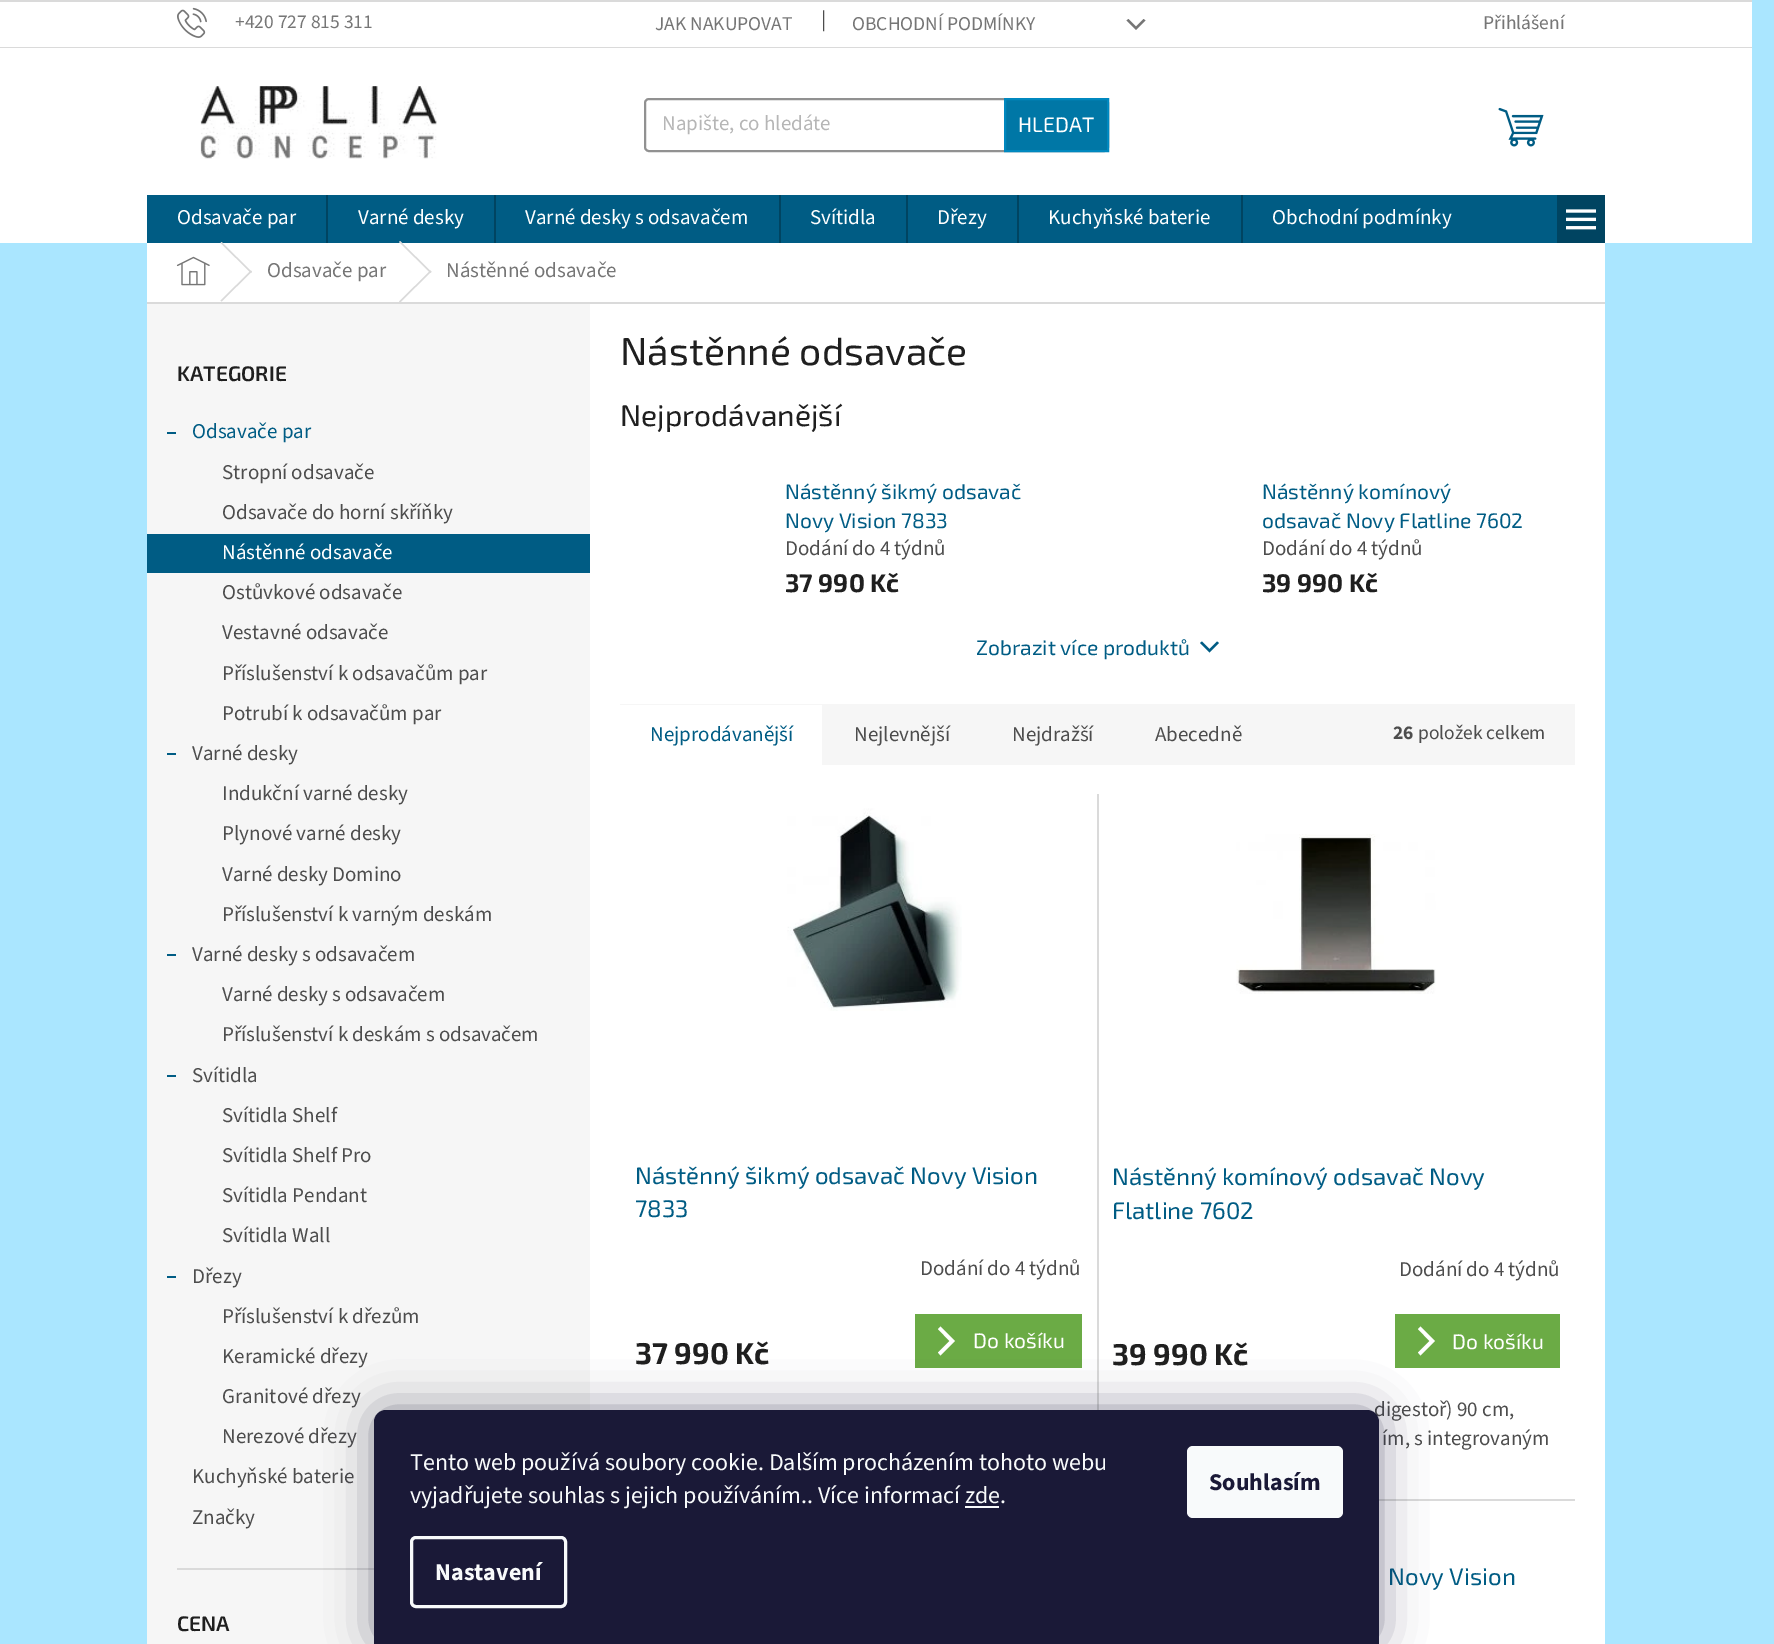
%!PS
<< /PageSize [1774 1644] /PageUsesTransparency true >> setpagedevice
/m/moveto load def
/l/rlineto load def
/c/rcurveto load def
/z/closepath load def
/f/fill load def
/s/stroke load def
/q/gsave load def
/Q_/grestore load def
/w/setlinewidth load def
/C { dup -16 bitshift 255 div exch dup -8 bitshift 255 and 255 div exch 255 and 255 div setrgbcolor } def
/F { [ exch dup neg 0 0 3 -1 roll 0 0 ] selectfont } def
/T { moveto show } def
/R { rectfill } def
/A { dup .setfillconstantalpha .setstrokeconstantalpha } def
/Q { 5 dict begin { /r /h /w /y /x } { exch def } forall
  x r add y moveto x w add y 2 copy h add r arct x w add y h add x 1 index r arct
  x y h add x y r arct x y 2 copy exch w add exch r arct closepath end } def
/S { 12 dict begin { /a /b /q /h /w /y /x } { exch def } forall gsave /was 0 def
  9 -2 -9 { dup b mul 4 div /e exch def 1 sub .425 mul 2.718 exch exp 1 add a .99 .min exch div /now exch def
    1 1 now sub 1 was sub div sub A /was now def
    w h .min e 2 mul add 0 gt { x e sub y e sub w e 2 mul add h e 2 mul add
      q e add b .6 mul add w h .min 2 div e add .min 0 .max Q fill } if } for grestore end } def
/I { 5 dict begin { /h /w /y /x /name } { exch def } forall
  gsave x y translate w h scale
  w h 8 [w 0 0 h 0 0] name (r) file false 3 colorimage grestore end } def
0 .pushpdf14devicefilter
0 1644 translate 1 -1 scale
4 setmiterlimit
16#AAE6FF C
0 0 1774 1644 R
16#FFFFFF C
0 2 1752 45 R
16#DADADA C
0 0 1752 2 R
0 47 1752 1 R
(1.rgb) 177 7 30 31 I
/SourceSans3-Regular 19.5 F
16#767676 C
(+420 727 815 311) 235 28 T
(JAK NAKUPOVAT) 655 30 T
/SourceSans3-Regular 21 F
16#4D4D4D C
(|) 821 26 T
/SourceSans3-Regular 19.5 F
16#767676 C
(OBCHODNÍ PODMÍNKY) 852 30 T
1126.5 20.5 m 2 -1.5 l 7.5 7.5 l 7.5 -7.5 l 2 1.5 l -9.5 9.5 l z f
(Přihlášení) 1483 29 T
16#FFFFFF C
0 48 1752 195 R
(2.rgb) 200 86 237 73 I
16#919191 C
2 w
645 99 463 52 4 Q s
/SourceSans3-Regular 21 F
16#B6B6B6 C
(Napište, co hledáte) 662 130 T
16#0077A6 C
1005 99 m 103 0 l 0 52 l -103 0 l z q f Q_
16#0088BF C
s
/Exo2-Regular 21 F
16#FFFFFF C
(HLEDAT) 1018 132 T
(3.rgb) 1498 107 46 40 I
16#005C84 C
147 195 1410 48 R
/SourceSans3-Regular 21 F
16#FFFFFF C
(Odsavače par) 177 224 T
16#004461 C
326 195 2 48 R
16#FFFFFF C
(Varné desky) 358 224 T
16#004461 C
494 195 2 48 R
16#FFFFFF C
(Varné desky s odsavačem) 525 224 T
16#004461 C
779 195 2 48 R
16#FFFFFF C
(Svítidla) 810 224 T
16#004461 C
906 195 2 48 R
16#FFFFFF C
(Dřezy) 937 224 T
16#004461 C
1017 195 2 48 R
16#FFFFFF C
(Kuchyňské baterie) 1048 224 T
16#004461 C
1241 195 2 48 R
16#FFFFFF C
(Obchodní podmínky) 1272 224 T
16#004461 C
1557 195 48 48 R
(4.rgb) 1566 209 30 21 I
16#FFFFFF C
147 243 1458 59 R
16#DADADA C
147 302 1458 2 R
(5.rgb) 176 256 34 30 I
220.5 243 m 1 -1 l 30.5 30 l -1 1 l z f
251 270.5 m 1 1 l -30.5 30 l -1 -1 l z f
16#767676 C
(Odsavače par) 267 277 T
16#DADADA C
399 242 m 1 -1 l 31.5 31 l -1 1 l z f
430.5 270.5 m 1 1 l -31.5 31 l -1 -1 l z f
16#767676 C
(Nástěnné odsavače) 446 277 T
16#FFFFFF C
590 304 1015 1340 R
16#F6F6F6 C
147 304 443 1340 R
16#DADADA C
177 1568 197 2 R
/Exo2-SemiBold 21 F
16#1F1F1F C
(KATEGORIE) 177 381 T
16#005C84 C
167 432 9 2 R
/SourceSans3-Regular 21 F
(Odsavače par) 192 438 T
16#4D4D4D C
(Stropní odsavače) 222 479 T
(Odsavače do horní skříňky) 222 519 T
16#005C84 C
147 534 443 39 R
16#FFFFFF C
(Nástěnné odsavače) 222 559 T
16#4D4D4D C
(Ostůvkové odsavače) 222 599 T
(Vestavné odsavače) 222 639 T
(Příslušenství k odsavačům par) 222 680 T
(Potrubí k odsavačům par) 222 720 T
16#005C84 C
167 753 9 2 R
16#4D4D4D C
(Varné desky) 192 760 T
(Indukční varné desky) 222 800 T
(Plynové varné desky) 222 840 T
(Varné desky Domino) 222 881 T
(Příslušenství k varným deskám) 222 921 T
16#005C84 C
167 954 9 2 R
16#4D4D4D C
(Varné desky s odsavačem) 192 961 T
(Varné desky s odsavačem) 222 1001 T
(Příslušenství k deskám s odsavačem) 222 1041 T
16#005C84 C
167 1075 9 2 R
16#4D4D4D C
(Svítidla) 192 1082 T
(Svítidla Shelf) 222 1122 T
(Svítidla Shelf Pro) 222 1162 T
(Svítidla Pendant) 222 1202 T
(Svítidla Wall) 222 1242 T
16#005C84 C
167 1276 9 2 R
16#4D4D4D C
(Dřezy) 192 1283 T
(Příslušenství k dřezům) 222 1323 T
(Keramické dřezy) 222 1363 T
(Granitové dřezy) 222 1403 T
(Nerezové dřezy) 222 1443 T
(Kuchyňské baterie) 192 1483 T
(Značky) 192 1524 T
/Exo2-SemiBold 21 F
16#1F1F1F C
(CENA) 177 1631 T
/Exo2-Regular 39 F
(Nástěnné odsavače) 620 365 T
/Exo2-Regular 30 F
(Nejprodávanější) 620 426 T
/Exo2-Regular 21 F
16#005C84 C
(Nástěnný šikmý odsavač) 785 499 T
(Novy Vision 7833) 785 528 T
/SourceSans3-Regular 21 F
16#4D4D4D C
(Dodání do 4 týdnů) 785 555 T
/Exo2-Bold 25.5 F
16#1F1F1F C
(37 990 Kč) 785 592 T
/Exo2-Regular 21 F
16#005C84 C
(Nástěnný komínový) 1262 499 T
(odsavač Novy Flatline 7602) 1262 528 T
/SourceSans3-Regular 21 F
16#4D4D4D C
(Dodání do 4 týdnů) 1262 555 T
/Exo2-Bold 25.5 F
16#1F1F1F C
(39 990 Kč) 1262 592 T
/Exo2-Regular 21 F
16#005C84 C
(Zobrazit více produktů) 976 655 T
1200 643 m 2 -1.5 l 7.5 7.5 l 7.5 -7.5 l 2 1.5 l -9.5 9.5 l z f
16#F6F6F6 C
620 704 955 61 R
16#FFFFFF C
620 705 202 60 R
/SourceSans3-Regular 21 F
16#005C84 C
(Nejprodávanější) 650 741 T
16#4D4D4D C
(Nejlevnější) 854 741 T
(Nejdražší) 1012 741 T
(Abecedně) 1155 741 T
/SourceSans3-Bold 19.5 F
(26) 1393 739 T
/SourceSans3-Regular 19.5 F
(položek celkem) 1418 739 T
16#DADADA C
1097 794 2 616 R
(6.rgb) 787 808 175 203 I
/Exo2-Regular 24 F
16#005C84 C
(Nástěnný šikmý odsavač Novy Vision) 635 1184 T
(7833) 635 1217 T
/SourceSans3-Regular 21 F
16#4D4D4D C
(Dodání do 4 týdnů) 920 1275 T
/Exo2-Bold 30 F
16#1F1F1F C
(37 990 Kč) 635 1364 T
16#6BAB45 C
915 1314 167 54 R
16#FFFFFF C
940.5 1355.5 m -2.5 -3 l 11.5 -11.5 l -11.5 -12 l 2.5 -2.5 l 14.5 14.5 l z f
/Exo2-Regular 21 F
(Do košíku) 973 1348 T
(7.rgb) 1236 834 200 160 I
/Exo2-Regular 24 F
16#005C84 C
(Nástěnný komínový odsavač Novy) 1112 1185 T
(Flatline 7602) 1112 1219 T
/SourceSans3-Regular 21 F
16#4D4D4D C
(Dodání do 4 týdnů) 1399 1276 T
/Exo2-Bold 30 F
16#1F1F1F C
(39 990 Kč) 1112 1365 T
16#6BAB45 C
1395 1314 165 54 R
16#FFFFFF C
1420.5 1355.5 m -2.5 -3 l 11.5 -11.5 l -11.5 -12 l 2.5 -2.5 l 14.5 14.5 l z f
/Exo2-Regular 21 F
(Do košíku) 1452 1349 T
/SourceSans3-Regular 21 F
16#4D4D4D C
(digestoř\) 90 cm,) 1374 1416 T
(ím, s integrovaným) 1382 1445 T
16#DADADA C
1379 1499 196 2 R
/Exo2-Regular 24 F
16#005C84 C
(Novy Vision) 1388 1585 T
16#1B1939 C
374 1410 1005 234 12 22.5 .5 S
16#1A1937 C
386 1410 m 981 0 l 6.5 0 12 5.5 12 12 c 0 222 l -1005 0 l 0 -222 l 0 -6.5 5.5 -12 12 -12 c z f
/SourceSans3-Regular 24 F
16#F8FAFB C
(Tento web používá soubory cookie. Dalším procházením tohoto webu) 410 1470 T
(vyjadřujete souhlas s jejich používáním.. Více informací zde.) 410 1503 T
965 1506 34 2 R
3 w
411.5 1537.5 154 69 4.5 Q s
/SourceSans3-Bold 24 F
(Nastavení) 435 1580 T
1187 1446 156 72 6 Q f
16#1A1937 C
(Souhlasím) 1209 1490 T
.poppdf14devicefilter showpage
